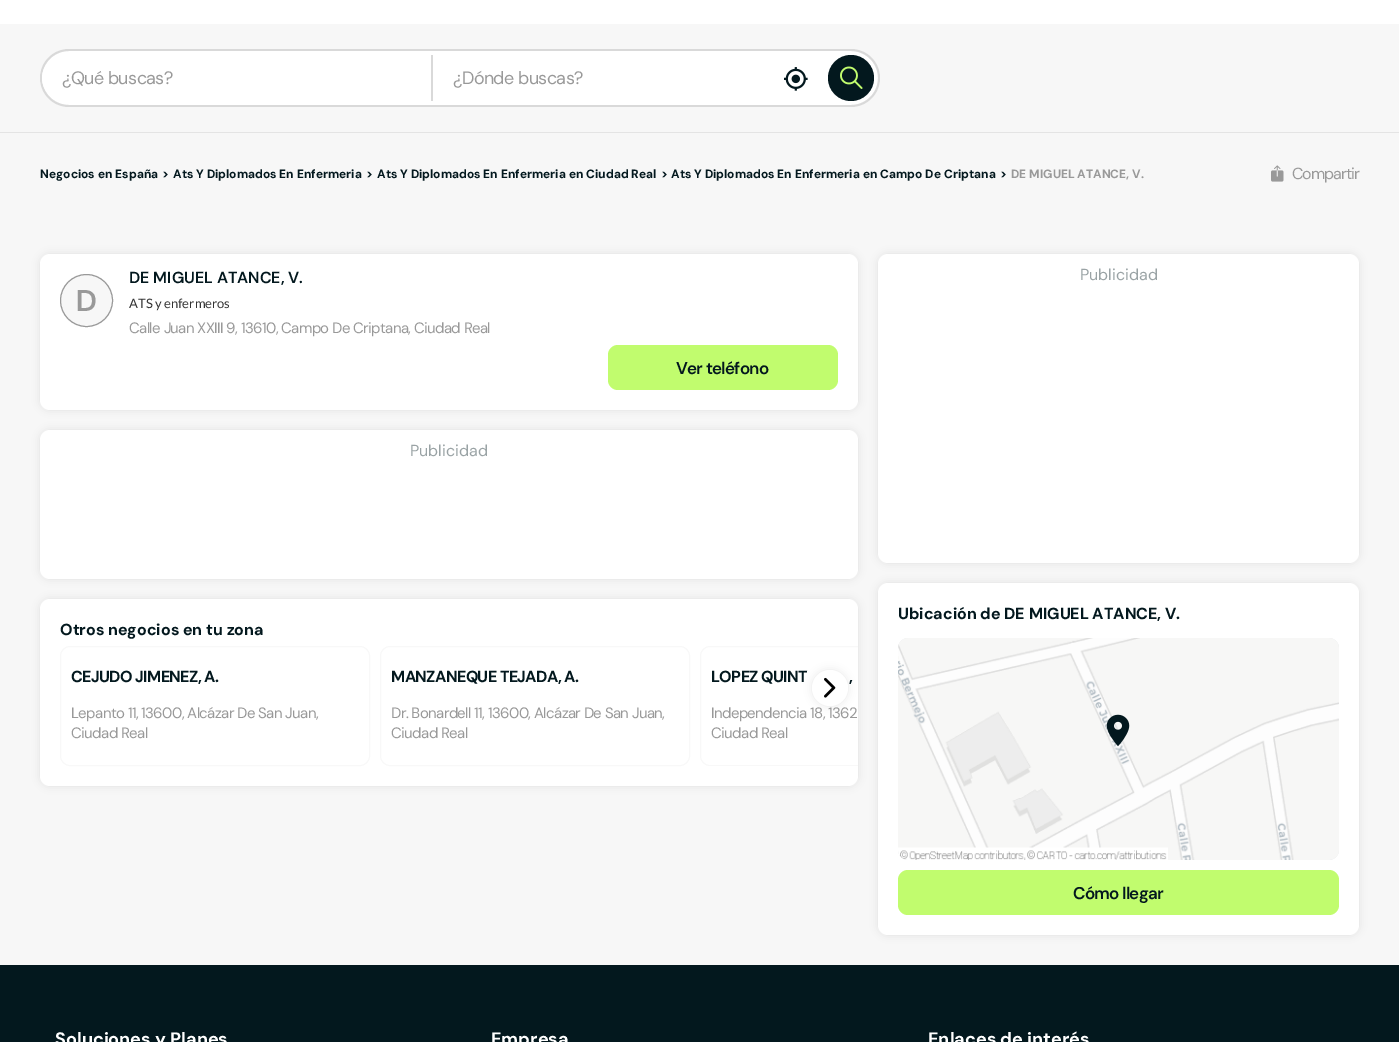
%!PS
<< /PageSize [1399 1042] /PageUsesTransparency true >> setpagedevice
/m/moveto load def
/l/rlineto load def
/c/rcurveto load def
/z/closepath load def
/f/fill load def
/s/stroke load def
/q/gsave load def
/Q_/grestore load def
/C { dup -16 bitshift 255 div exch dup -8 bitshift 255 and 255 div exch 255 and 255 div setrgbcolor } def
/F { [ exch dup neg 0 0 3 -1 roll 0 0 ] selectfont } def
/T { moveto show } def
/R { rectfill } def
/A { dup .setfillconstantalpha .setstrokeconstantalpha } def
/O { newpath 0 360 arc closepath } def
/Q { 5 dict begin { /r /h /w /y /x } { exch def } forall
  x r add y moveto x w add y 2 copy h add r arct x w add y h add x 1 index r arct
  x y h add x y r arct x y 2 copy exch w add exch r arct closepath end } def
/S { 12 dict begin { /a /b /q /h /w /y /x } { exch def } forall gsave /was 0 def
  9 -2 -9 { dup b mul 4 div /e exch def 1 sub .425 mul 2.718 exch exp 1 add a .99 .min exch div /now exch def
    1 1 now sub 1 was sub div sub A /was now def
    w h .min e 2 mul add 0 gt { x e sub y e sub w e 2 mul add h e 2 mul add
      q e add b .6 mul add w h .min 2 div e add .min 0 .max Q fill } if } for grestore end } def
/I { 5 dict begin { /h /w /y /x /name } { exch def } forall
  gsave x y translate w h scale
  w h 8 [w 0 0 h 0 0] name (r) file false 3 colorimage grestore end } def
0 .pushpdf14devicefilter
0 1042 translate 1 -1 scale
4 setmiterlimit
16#F7F7F7 C
0 0 1399 1042 R
16#FFFFFF C
0 0 1399 24 R
16#E4E4E4 C
0 132 1399 1 R
16#FFFFFF C
69 49 m 364 0 l 0 58 l -364 0 l -16 0 -29 -13 -29 -29 c 0 -16 13 -29 29 -29 c z f
16#D9D9D9 C
69 49 m 364 0 l 0 58 l -364 0 l -16 0 -29 -13 -29 -29 c 0 -16 13 -29 29 -29 c z 69 51 m 364 0 l 0 54 l -364 0 l -15 0 -27 -12 -27 -27 c 0 -15 12 -27 27 -27 c z eofill
16#FFFFFF C
65 55 m 368 0 l 0 46 l -368 0 l -12.5 0 -23 -10.5 -23 -23 c 0 -12.5 10.5 -23 23 -23 c z f
16#D9D9D9 C
431 55 2 46 R
/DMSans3-Regular 18 F
16#999999 C
62 84 m -.6 0 (¿Qué buscas?) ashow
16#FFFFFF C
433 51 391 54 R
16#D9D9D9 C
433 49 391 2 R
433 105 391 2 R
16#999999 C
453 84 m -.6 0 (¿Dónde buscas?) ashow
(1.rgb) 784 67 24 24 I
16#FFFFFF C
824 49 m 27 0 l 16 0 29 13 29 29 c 0 16 -13 29 -29 29 c -27 0 l z f
16#D9D9D9 C
824 49 m 27 0 l 16 0 29 13 29 29 c 0 16 -13 29 -29 29 c -27 0 l z 824 51 m 27 0 l 15 0 27 12 27 27 c 0 15 -12 27 -27 27 c -27 0 l z eofill
16#03181E C
851 78 23 O f
(2.rgb) 840 66 23 23 I
/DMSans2-Bold 12 F
(Negocios en España) 40 178 T
(>) 162 178 T
(Ats Y Diplomados En Enfermeria) 173 178 T
(>) 366 178 T
(Ats Y Diplomados En Enfermeria en Ciudad Real) 377 178 T
(>) 661 178 T
(Ats Y Diplomados En Enfermeria en Campo De Criptana) 671 178 T
(>) 1000 178 T
16#999999 C
(DE MIGUEL ATANCE, V.) 1011 178 T
(3.rgb) 1271 165 13 17 I
/DMSans-Regular 16 F
1292 179 m -1 0 (Compartir) ashow
16#000000 C
40 254 818 156 10 4 .09 S
16#FFFFFF C
40 254 818 156 10 Q f
/DMSans2-SemiBold 16 F
16#03181E C
(DE MIGUEL ATANCE, V.) 129 283 T
16#F7F7F7 C
86.5 300.5 26 O q f Q_
16#999999 C
s
/DMSans3-SemiBold 30 F
(D) 76 311 T
/Lato-Regular 13 F
16#333333 C
(ATS y enfermeros) 129 308 T
/DMSans2-Regular 15 F
16#999999 C
129 333 m -.6 0 (Calle Juan XXIII 9, 13610, Campo De Criptana, Ciudad Real) ashow
16#C1FC6E C
608 345 230 45 10 Q f
/DMSans-SemiBold 17 F
16#03181E C
676 374 m -.75 0 (Ver teléfono) ashow
16#000000 C
40 430 818 149 10 4 .09 S
16#FFFFFF C
40 430 818 149 10 Q f
/DMSans-Regular 16 F
16#9AA3A5 C
(Publicidad) 410 456 T
16#000000 C
40 599 818 187 10 4 .09 S
16#FFFFFF C
40 599 818 187 10 Q f
/DMSans-Bold 16 F
16#03181E C
(Otros negocios en tu zona) 60 635 T
16#000000 C
878 583 481 352 10 4 .09 S
16#FFFFFF C
878 583 481 352 10 Q f
(5.rgb) 898 638 441 222 I
(6.rgb) 898 638 441 222 I
q
40 646 818 120 rectclip
16#F8F8F8 C
700.5 646.5 309 119 9.5 Q s
Q_
16#000000 C
812 670 36 36 18 4 .09 S
16#FFFFFF C
830 688 18 O f
(4.rgb) 824 677 12 21 I
16#F8F8F8 C
60.5 646.5 309 119 9.5 Q s
16#03181E C
71 682 m -.6 0 (CEJUDO JIMENEZ, A.) ashow
/DMSans2-Regular 15 F
16#999999 C
71 718 m -.6 0 (Lepanto 11, 13600, Alcázar De San Juan,) ashow
71 738 m -.6 0 (Ciudad Real) ashow
16#F8F8F8 C
380.5 646.5 309 119 9.5 Q s
/DMSans-Bold 16 F
16#03181E C
391 682 m -.6 0 (MANZANEQUE TEJADA, A.) ashow
/DMSans2-Regular 15 F
16#999999 C
391 718 m -.6 0 (Dr. Bonardell 11, 13600, Alcázar De San Juan,) ashow
391 738 m -.6 0 (Ciudad Real) ashow
/DMSans-Bold 16 F
16#03181E C
711 682 m -.6 0 (LOPEZ QUINT) ashow
849 682 m -.6 0 (,) ashow
/DMSans2-Regular 15 F
16#999999 C
711 718 m -.6 0 (Independencia 18, 1362) ashow
711 738 m -.6 0 (Ciudad Real) ashow
16#000000 C
878 254 481 309 10 4 .09 S
16#FFFFFF C
878 254 481 309 10 Q f
/DMSans-Regular 16 F
16#9AA3A5 C
(Publicidad) 1080 280 T
/DMSans-Bold 16 F
16#03181E C
(Ubicación de DE MIGUEL ATANCE, V.) 898 619 T
(7.rgb) 1106 714 24 33 I
16#C1FC6E C
898 870 441 45 10 Q f
/DMSans-SemiBold 17 F
16#03181E C
1073 899 m -.75 0 (Cómo llegar) ashow
0 965 1399 77 R
/DMSans3-Bold 18 F
16#FFFFFF C
(Soluciones y Planes) 55 1045 T
(Empresa) 491 1045 T
(Enlaces de interés) 928 1045 T
.poppdf14devicefilter showpage
